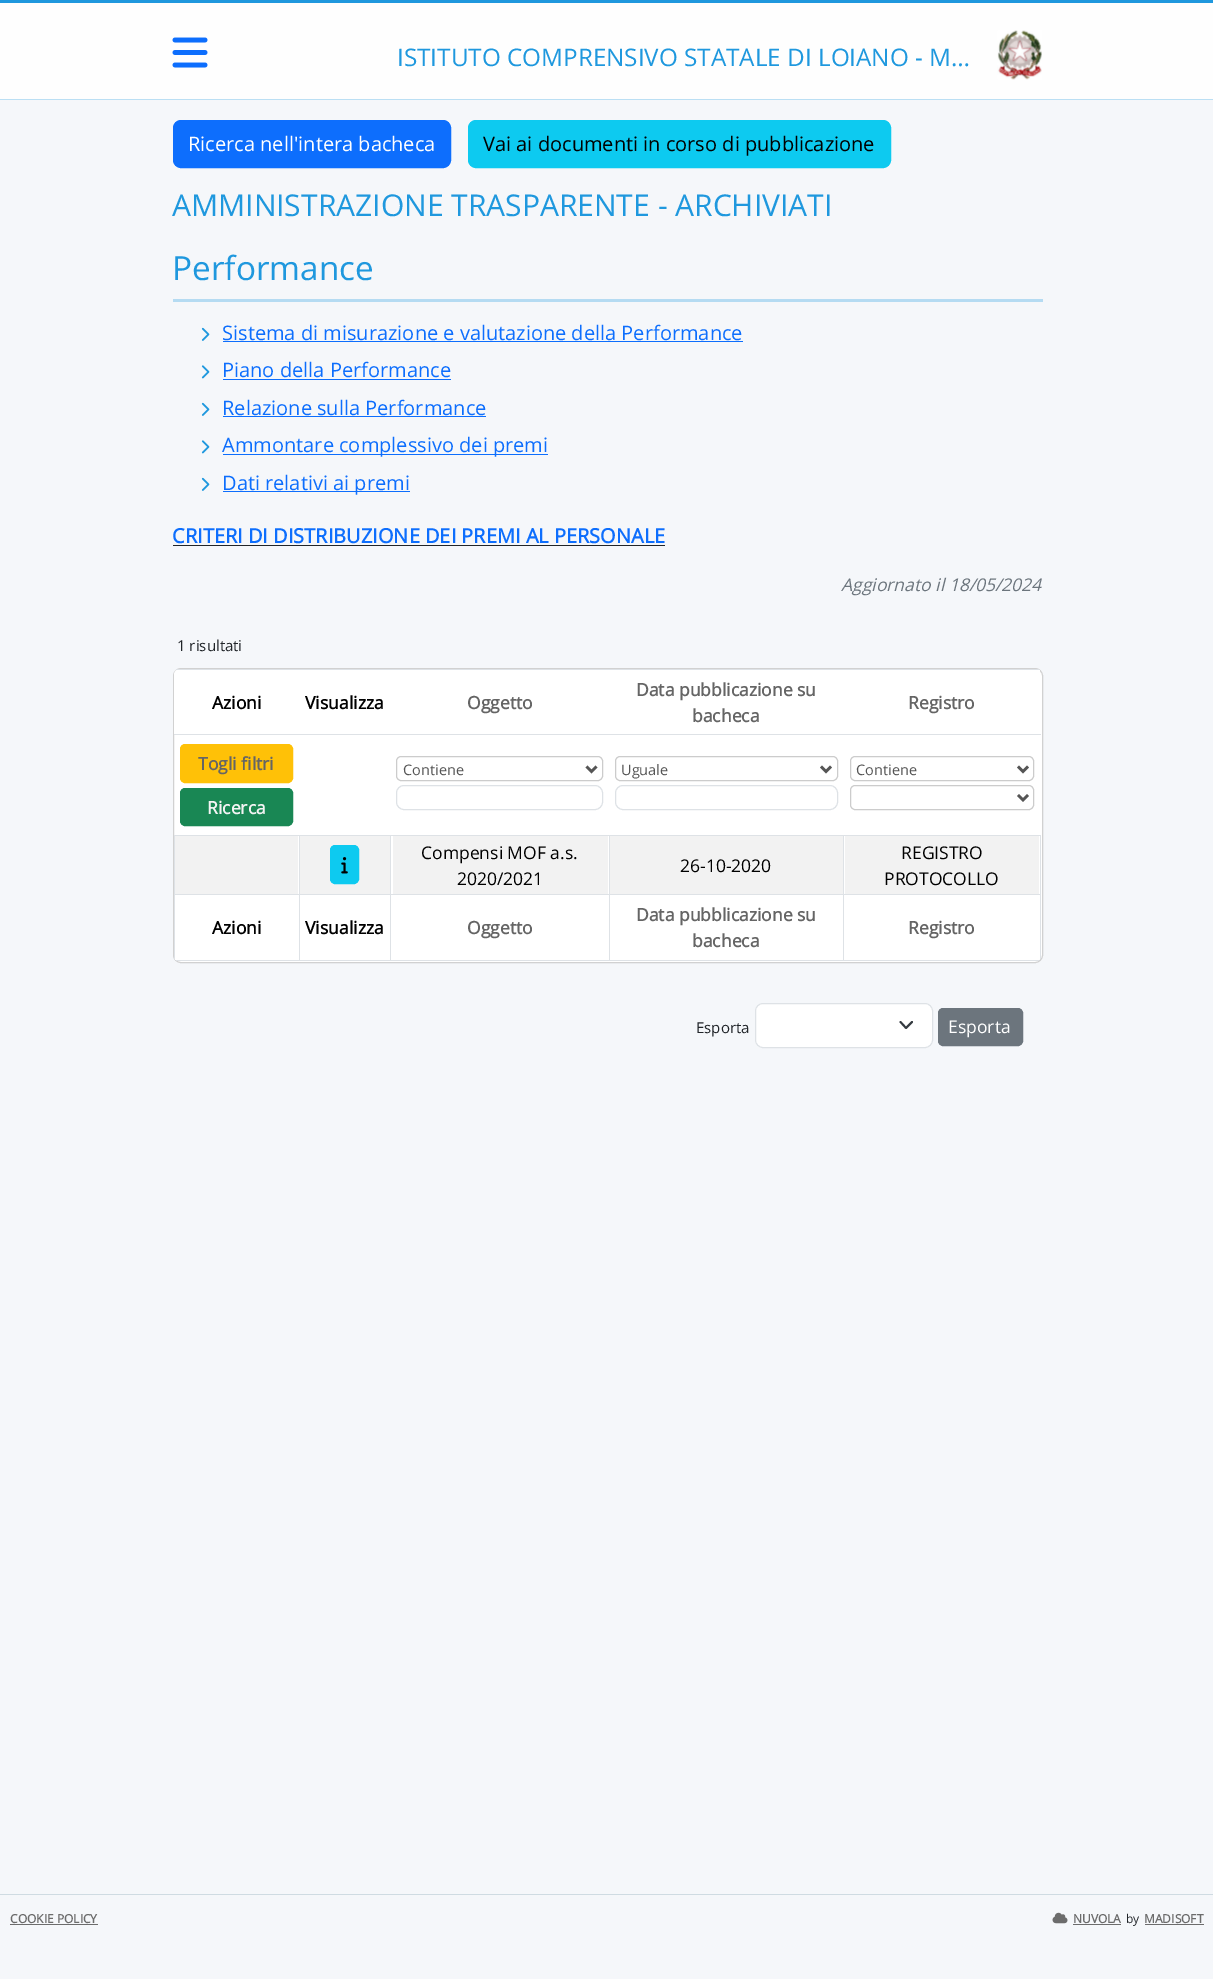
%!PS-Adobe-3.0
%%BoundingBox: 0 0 1213 1979
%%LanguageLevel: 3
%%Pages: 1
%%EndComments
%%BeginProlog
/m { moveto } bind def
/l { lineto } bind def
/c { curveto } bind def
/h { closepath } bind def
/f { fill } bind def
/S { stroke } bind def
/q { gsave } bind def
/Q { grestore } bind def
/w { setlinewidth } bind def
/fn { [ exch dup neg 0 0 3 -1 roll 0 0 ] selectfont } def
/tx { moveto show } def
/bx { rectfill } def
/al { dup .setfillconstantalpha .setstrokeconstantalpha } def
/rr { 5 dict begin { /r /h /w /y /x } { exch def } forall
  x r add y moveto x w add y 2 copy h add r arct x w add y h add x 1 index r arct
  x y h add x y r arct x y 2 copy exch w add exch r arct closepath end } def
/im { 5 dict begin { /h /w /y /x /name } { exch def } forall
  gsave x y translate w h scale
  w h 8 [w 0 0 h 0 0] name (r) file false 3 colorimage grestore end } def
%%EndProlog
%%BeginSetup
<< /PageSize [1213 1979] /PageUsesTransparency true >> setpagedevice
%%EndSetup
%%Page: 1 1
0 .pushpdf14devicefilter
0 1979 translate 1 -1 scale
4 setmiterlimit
0.961 0.969 0.98 setrgbcolor
0 0 1213 1979 bx
0.996 setgray
0 3 1213 96 bx
0.122 0.596 0.871 setrgbcolor
0 0 1213 3 bx
0.733 0.875 0.957 setrgbcolor
0 99 1213 1 bx
(image0.raw) 172 37 36 31 im
/OpenSans-Regular 24.25 fn
0.122 0.596 0.871 setrgbcolor
(ISTITUTO COMPRENSIVO STATALE DI LOIANO - M…) 397 66 tx
(image1.raw) 997 30 45 50 im
0.051 0.431 0.992 setrgbcolor
173.5 120.5 277 47 7.5 rr q f Q
S
/OpenSans-Regular 20 fn
1 setgray
(Ricerca nell'intera bacheca) 188 151 tx
0.051 0.792 0.941 setrgbcolor
468.5 120.5 422 47 7.5 rr q f Q
S
0 setgray
(Vai ai documenti in corso di pubblicazione) 483 151 tx
/OpenSans-Regular 30 fn
0.122 0.596 0.871 setrgbcolor
(AMMINISTRAZIONE TRASPARENTE - ARCHIVIATI) 172 216 tx
0.71 0.859 0.949 setrgbcolor
173 299 870 3 bx
/OpenSans-Regular 33.25 fn
0.122 0.596 0.871 setrgbcolor
(Performance) 172 280 tx
(image2.raw) 201 327 9 14 im
/OpenSans-Regular 20 fn
0.051 0.431 0.992 setrgbcolor
(Sistema di misurazione e valutazione della Performance) 222 340 tx
223 341 520 1 bx
(image3.raw) 201 365 9 14 im
(Piano della Performance) 222 377 tx
223 379 228 1 bx
(image2.raw) 201 402 9 14 im
(Relazione sulla Performance) 222 415 tx
223 416 263 1 bx
(image3.raw) 201 440 9 14 im
223 454 325 1 bx
(Ammontare complessivo dei premi) 222 452 tx
(image2.raw) 201 477 9 14 im
223 491 187 1 bx
(Dati relativi ai premi) 222 490 tx
/OpenSans-Bold 20 fn
(CRITERI DI DISTRIBUZIONE DEI PREMI AL PERSONALE) 172 543 tx
0.129 0.145 0.161 setrgbcolor
173 545 492 1 bx
/OpenSans-Italic 17.5 fn
0.424 0.459 0.49 setrgbcolor
(Aggiornato il 18/05/2024) 841 591 tx
/OpenSans-Regular 15 fn
0.129 0.145 0.161 setrgbcolor
(1 risultati) 177 651 tx
1 setgray
173 668 870 295 8 rr f
0.18 al
0 setgray
173.5 668.5 869 294 7.5 rr S
1 al
1 setgray
180 669 m 299 669 l 299 735 l 174 735 l 174 675 l 174 671.5 176.5 669 180 669 c h f
q
174 669 867 292 6 rr clip newpath
844 669 196 65 bx
0.871 0.886 0.902 setrgbcolor
174 669 867 1 bx
Q
/OpenSans-Bold 17.5 fn
0 setgray
(Azioni) 212 709 tx
(Visualizza) 305 709 tx
0.396 setgray
(Oggetto) 467 709 tx
(Data pubblicazione su) 636 696 tx
(bacheca) 692 722 tx
(Registro) 908 709 tx
0.871 0.886 0.902 setrgbcolor
174 734 867 1 bx
1 0.757 0.027 setrgbcolor
180.5 744.5 112 38 4.5 rr q f Q
S
0.396 setgray
(Togli filtri) 198 770 tx
0.098 0.529 0.329 setrgbcolor
180.5 788.5 112 37 4.5 rr q f Q
S
0.957 setgray
(Ricerca) 207 814 tx
0.8 setgray
396.5 756.5 206 24 4.5 rr S
0.333 setgray
2.5 w
586.5 766.5 m 591.5 771.5 l 596.5 766.5 l S
/OpenSans-Regular 14.5 fn
(Contiene) 403 775 tx
0.871 0.886 0.902 setrgbcolor
1 w
396.5 785.5 206 24 7.5 rr S
0.8 setgray
615.5 756.5 222 24 4.5 rr S
0.333 setgray
2.5 w
821 766.5 m 826 771.5 l 831 766.5 l S
(Uguale) 621 775 tx
0.871 0.886 0.902 setrgbcolor
1 w
615.5 785.5 222 24 7.5 rr S
0.8 setgray
850.5 756.5 183 24 4.5 rr S
0.333 setgray
2.5 w
1018 766.5 m 1023 771.5 l 1028 766.5 l S
(Contiene) 856 775 tx
0.8 setgray
1 w
850.5 785.5 183 24 4.5 rr S
0.333 setgray
2.5 w
1018 795 m 1023 800 l 1028 795 l S
0.871 0.886 0.902 setrgbcolor
174 835 867 1 bx
0.949 setgray
175 836 123 58 bx
0.871 0.886 0.902 setrgbcolor
174 894 867 1 bx
q
174 669 867 292 6 rr clip newpath
174 960 867 1 bx
174 894 1 67 bx
Q
174 835 1 60 bx
0.949 setgray
300 836 90 58 bx
0.051 0.792 0.941 setrgbcolor
330.5 845.5 28 38 4.5 rr q f Q
1 w
S
(image4.raw) 341 857 7 17 im
0.949 setgray
393 836 215 58 bx
/OpenSans-Regular 17.5 fn
0 setgray
(Compensi MOF a.s.) 421 859 tx
(2020/2021) 457 885 tx
0.949 setgray
610 836 233 58 bx
0 setgray
(26-10-2020) 680 872 tx
0.949 setgray
845 836 194 58 bx
q
174 669 867 292 6 rr clip newpath
0.871 0.886 0.902 setrgbcolor
1040 894 1 67 bx
Q
0.871 0.886 0.902 setrgbcolor
1040 835 1 60 bx
0 setgray
(REGISTRO) 901 859 tx
(PROTOCOLLO) 884 885 tx
q
174 669 867 292 6 rr clip newpath
1 setgray
175 895 123 65 bx
Q
/OpenSans-Bold 17.5 fn
(Azioni) 212 934 tx
0.871 0.886 0.902 setrgbcolor
299 835 1 126 bx
0 setgray
(Visualizza) 305 934 tx
0.871 0.886 0.902 setrgbcolor
390 835 1 126 bx
0.396 setgray
(Oggetto) 467 934 tx
0.871 0.886 0.902 setrgbcolor
609 835 1 126 bx
0.396 setgray
(Data pubblicazione su) 636 921 tx
(bacheca) 692 947 tx
0.871 0.886 0.902 setrgbcolor
843 835 1 126 bx
0.396 setgray
(Registro) 908 934 tx
/OpenSans-Regular 15 fn
0.129 0.145 0.161 setrgbcolor
(Esporta) 696 1033 tx
1 setgray
755 1003 178 45 8 rr f
0.204 0.227 0.251 setrgbcolor
1.9 w
1 setlinecap
1 setlinejoin
900.5 1022 m 906 1028 l 912 1022 l S
0.871 0.886 0.902 setrgbcolor
1 w
0 setlinecap
0 setlinejoin
755.5 1003.5 177 44 7.5 rr S
0.424 0.459 0.49 setrgbcolor
938.5 1008.5 84 37 4.5 rr q f Q
S
/OpenSans-Regular 17.5 fn
1 setgray
(Esporta) 948 1033 tx
0.812 0.859 0.886 setrgbcolor
0 1894 1213 1 bx
/OpenSans-Bold 12 fn
0.424 setgray
(COOKIE POLICY) 10 1923 tx
10 1924 88 1 bx
(image5.raw) 1052 1912 16 12 im
(NUVOLA) 1073 1923 tx
1073 1924 48 1 bx
/OpenSans-Regular 12 fn
0.129 0.145 0.161 setrgbcolor
(by) 1126 1923 tx
/OpenSans-Bold 12 fn
0.424 setgray
(MADISOFT) 1144 1923 tx
1145 1924 59 1 bx
.poppdf14devicefilter showpage
%%EOF
